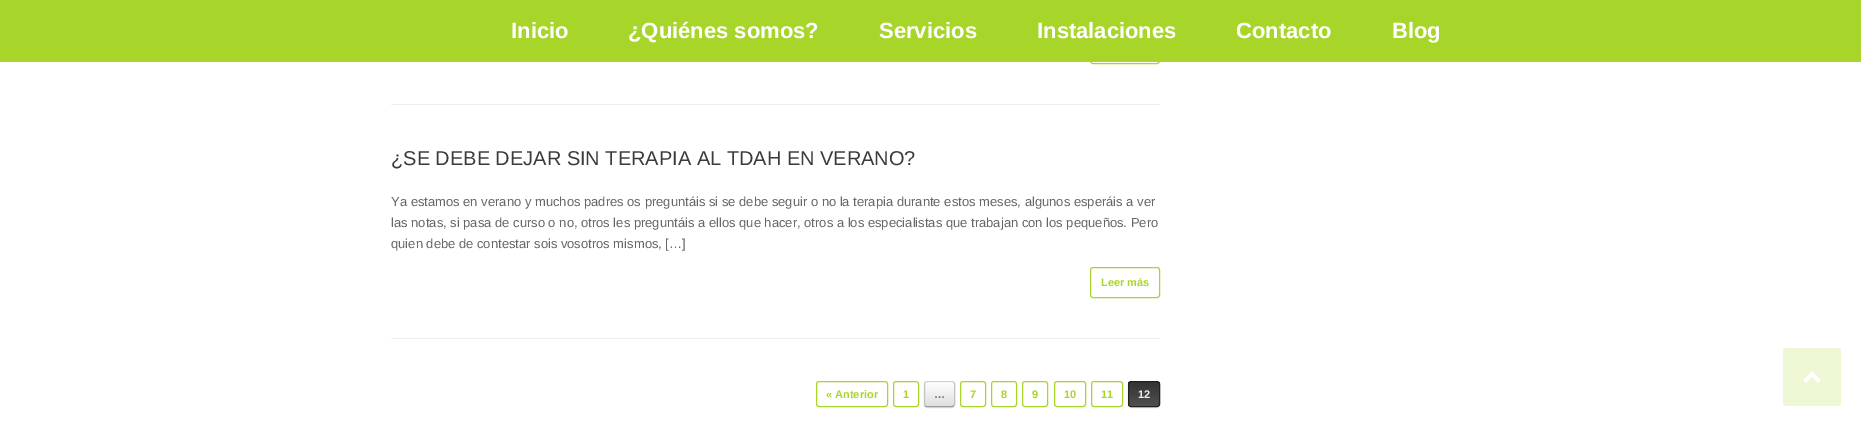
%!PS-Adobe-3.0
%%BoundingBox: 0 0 1861 426
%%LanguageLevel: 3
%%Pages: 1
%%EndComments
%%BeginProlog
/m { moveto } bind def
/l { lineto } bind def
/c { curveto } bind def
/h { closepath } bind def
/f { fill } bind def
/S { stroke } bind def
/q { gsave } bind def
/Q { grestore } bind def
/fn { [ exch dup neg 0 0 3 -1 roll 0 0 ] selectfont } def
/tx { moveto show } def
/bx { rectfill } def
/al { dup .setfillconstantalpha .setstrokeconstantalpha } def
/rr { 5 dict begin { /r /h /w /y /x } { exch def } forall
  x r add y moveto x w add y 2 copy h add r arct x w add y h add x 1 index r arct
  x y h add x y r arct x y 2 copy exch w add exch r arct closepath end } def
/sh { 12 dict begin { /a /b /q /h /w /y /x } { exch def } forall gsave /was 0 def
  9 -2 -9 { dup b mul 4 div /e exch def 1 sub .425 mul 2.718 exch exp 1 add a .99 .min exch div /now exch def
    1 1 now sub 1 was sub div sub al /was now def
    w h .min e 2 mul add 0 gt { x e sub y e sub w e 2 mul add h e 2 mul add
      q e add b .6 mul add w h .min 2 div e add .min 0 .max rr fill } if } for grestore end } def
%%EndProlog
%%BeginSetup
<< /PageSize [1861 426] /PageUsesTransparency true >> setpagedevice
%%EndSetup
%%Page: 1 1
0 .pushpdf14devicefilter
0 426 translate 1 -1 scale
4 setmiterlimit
1 setgray
0 0 1861 426 bx
0.655 0.835 0.165 setrgbcolor
1090.5 33.5 69 30 2.5 rr S
0 0 1861 62 bx
/LiberationSans-Bold 22 fn
1 setgray
(Inicio) 511 38 tx
(¿Quiénes somos?) 628 38 tx
(Servicios) 879 38 tx
(Instalaciones) 1037 38 tx
(Contacto) 1236 38 tx
(Blog) 1392 38 tx
0.933 setgray
391 104 769 1 bx
391 338 769 1 bx
/LiberationSans-Regular 20 fn
0.231 setgray
(¿SE DEBE DEJAR SIN TERAPIA AL TDAH EN VERANO?) 391 165 tx
/LiberationSans-Regular 13 fn
0.4 setgray
(Ya estamos en verano y muchos padres os preguntáis si se debe seguir o no la terapia durante estos meses, algunos esperáis a ver) 391 206 tx
(las notas, si pasa de curso o no, otros les preguntáis a ellos que hacer, otros a los especialistas que trabajan con los pequeños. Pero) 391 227 tx
(quien debe de contestar sois vosotros mismos, […]) 391 248 tx
0.655 0.835 0.165 setrgbcolor
1090.5 267.5 69 30 2.5 rr S
/LiberationSans-Bold 11 fn
(Leer más) 1101 286 tx
816.5 381.5 71 25 2.5 rr S
(« Anterior) 826 398 tx
893.5 381.5 25 25 2.5 rr S
(1) 903 398 tx
0 setgray
924 382 31 26 3 0.5 0.12 sh
q
924 381 31 26 3 rr clip newpath
q 924 382 m 955 382 l 955 406 l 924 406 l h clip newpath
<< /ShadingType 2 /ColorSpace /DeviceRGB /Coords [925 406 925 382] /Extend [true true] /Function << /FunctionType 2 /Domain [0 1] /C0 [0.875 0.875 0.875] /C1 [1 1 1] /N 1 >> >> shfill Q
Q
0.824 setgray
925 382 m 925.5 382 926.5 381.5 927 381.5 c 952 381.5 l 952.5 381.5 953.5 382 954 382 c S
0.765 setgray
954 382 m 954 382.5 954.5 383.5 954.5 384 c 954.5 404 l 954.5 404.5 954 405.5 954 406 c S
0.624 setgray
954 406 m 953.5 406 952.5 406.5 952 406.5 c 927 406.5 l 926.5 406.5 925.5 406 925 406 c S
0.765 setgray
925 406 m 925 405.5 924.5 404.5 924.5 404 c 924.5 384 l 924.5 383.5 925 382.5 925 382 c S
0.4 setgray
(…) 934 398 tx
0.655 0.835 0.165 setrgbcolor
960.5 381.5 25 25 2.5 rr S
(7) 970 398 tx
991.5 381.5 25 25 2.5 rr S
(8) 1001 398 tx
1022.5 381.5 25 25 2.5 rr S
(9) 1032 398 tx
1054.5 381.5 31 25 2.5 rr S
(10) 1064 398 tx
1091.5 381.5 31 25 2.5 rr S
(11) 1101 398 tx
0 setgray
1128 382 32 26 3 0.5 0.12 sh
q
1128 381 32 26 3 rr clip newpath
q 1128 382 m 1160 382 l 1160 406 l 1128 406 l h clip newpath
<< /ShadingType 2 /ColorSpace /DeviceRGB /Coords [1129 406 1129 382] /Extend [true true] /Function << /FunctionType 2 /Domain [0 1] /C0 [0.314 0.314 0.314] /C1 [0.2 0.2 0.2] /N 1 >> >> shfill Q
Q
0.133 setgray
1128.5 381.5 31 25 2.5 rr S
0.937 setgray
(12) 1138 398 tx
0.929 0.969 0.831 setrgbcolor
1783 348 58 58 3 rr f
1 setgray
1821 380 m 1812 371 l 1803 380 l 1806 383 l 1812 377 l 1818 383 l h f
.poppdf14devicefilter showpage
%%EOF
